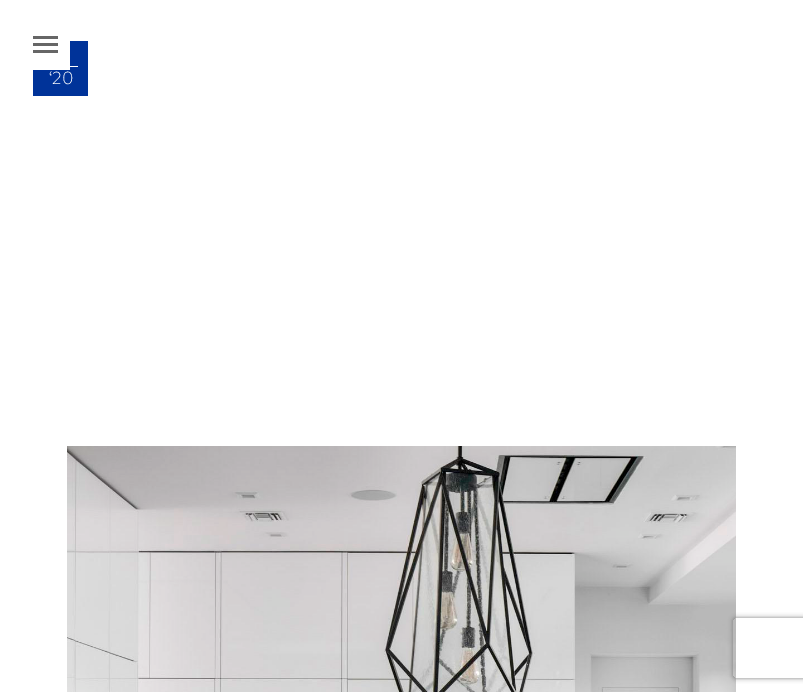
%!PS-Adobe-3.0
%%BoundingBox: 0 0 803 692
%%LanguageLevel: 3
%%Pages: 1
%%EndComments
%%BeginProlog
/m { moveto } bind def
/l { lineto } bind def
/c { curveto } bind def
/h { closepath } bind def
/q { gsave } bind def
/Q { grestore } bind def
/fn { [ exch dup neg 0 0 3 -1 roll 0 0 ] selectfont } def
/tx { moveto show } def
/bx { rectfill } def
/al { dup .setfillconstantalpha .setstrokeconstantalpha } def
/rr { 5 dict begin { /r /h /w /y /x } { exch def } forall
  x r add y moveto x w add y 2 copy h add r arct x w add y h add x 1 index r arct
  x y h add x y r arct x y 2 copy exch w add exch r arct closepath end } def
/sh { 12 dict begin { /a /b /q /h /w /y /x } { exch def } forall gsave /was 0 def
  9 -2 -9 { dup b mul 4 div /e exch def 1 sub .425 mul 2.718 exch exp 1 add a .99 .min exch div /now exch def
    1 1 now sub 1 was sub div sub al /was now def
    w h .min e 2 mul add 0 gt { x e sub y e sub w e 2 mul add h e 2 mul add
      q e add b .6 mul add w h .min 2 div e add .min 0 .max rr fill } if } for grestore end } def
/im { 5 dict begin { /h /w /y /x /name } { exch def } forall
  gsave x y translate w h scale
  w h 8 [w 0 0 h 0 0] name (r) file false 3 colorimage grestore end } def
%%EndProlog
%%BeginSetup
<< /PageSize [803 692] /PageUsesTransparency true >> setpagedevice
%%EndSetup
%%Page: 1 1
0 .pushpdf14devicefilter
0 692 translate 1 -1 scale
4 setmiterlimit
1 setgray
0 0 803 692 bx
0 0.2 0.6 setrgbcolor
33 41 55 55 bx
1 setgray
33 41 37 29 bx
0.4 setgray
33 36 25 3 bx
33 43 25 3 bx
33 50 25 3 bx
1 setgray
70 66 8 1 bx
/BrandonGrotesque-Light 18 fn
(‘20) 49 84 tx
(image0.raw) 67 446 669 246 im
q
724 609 m 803 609 l 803 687 l 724 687 l h 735 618 m 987 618 l 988 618 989 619 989 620 c 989 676 l 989 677 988 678 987 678 c 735 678 l 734 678 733 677 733 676 c 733 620 l 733 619 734 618 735 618 c h eoclip newpath
0.502 setgray
733 618 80 60 2 2.5 1 sh
Q
.poppdf14devicefilter showpage
%%EOF
